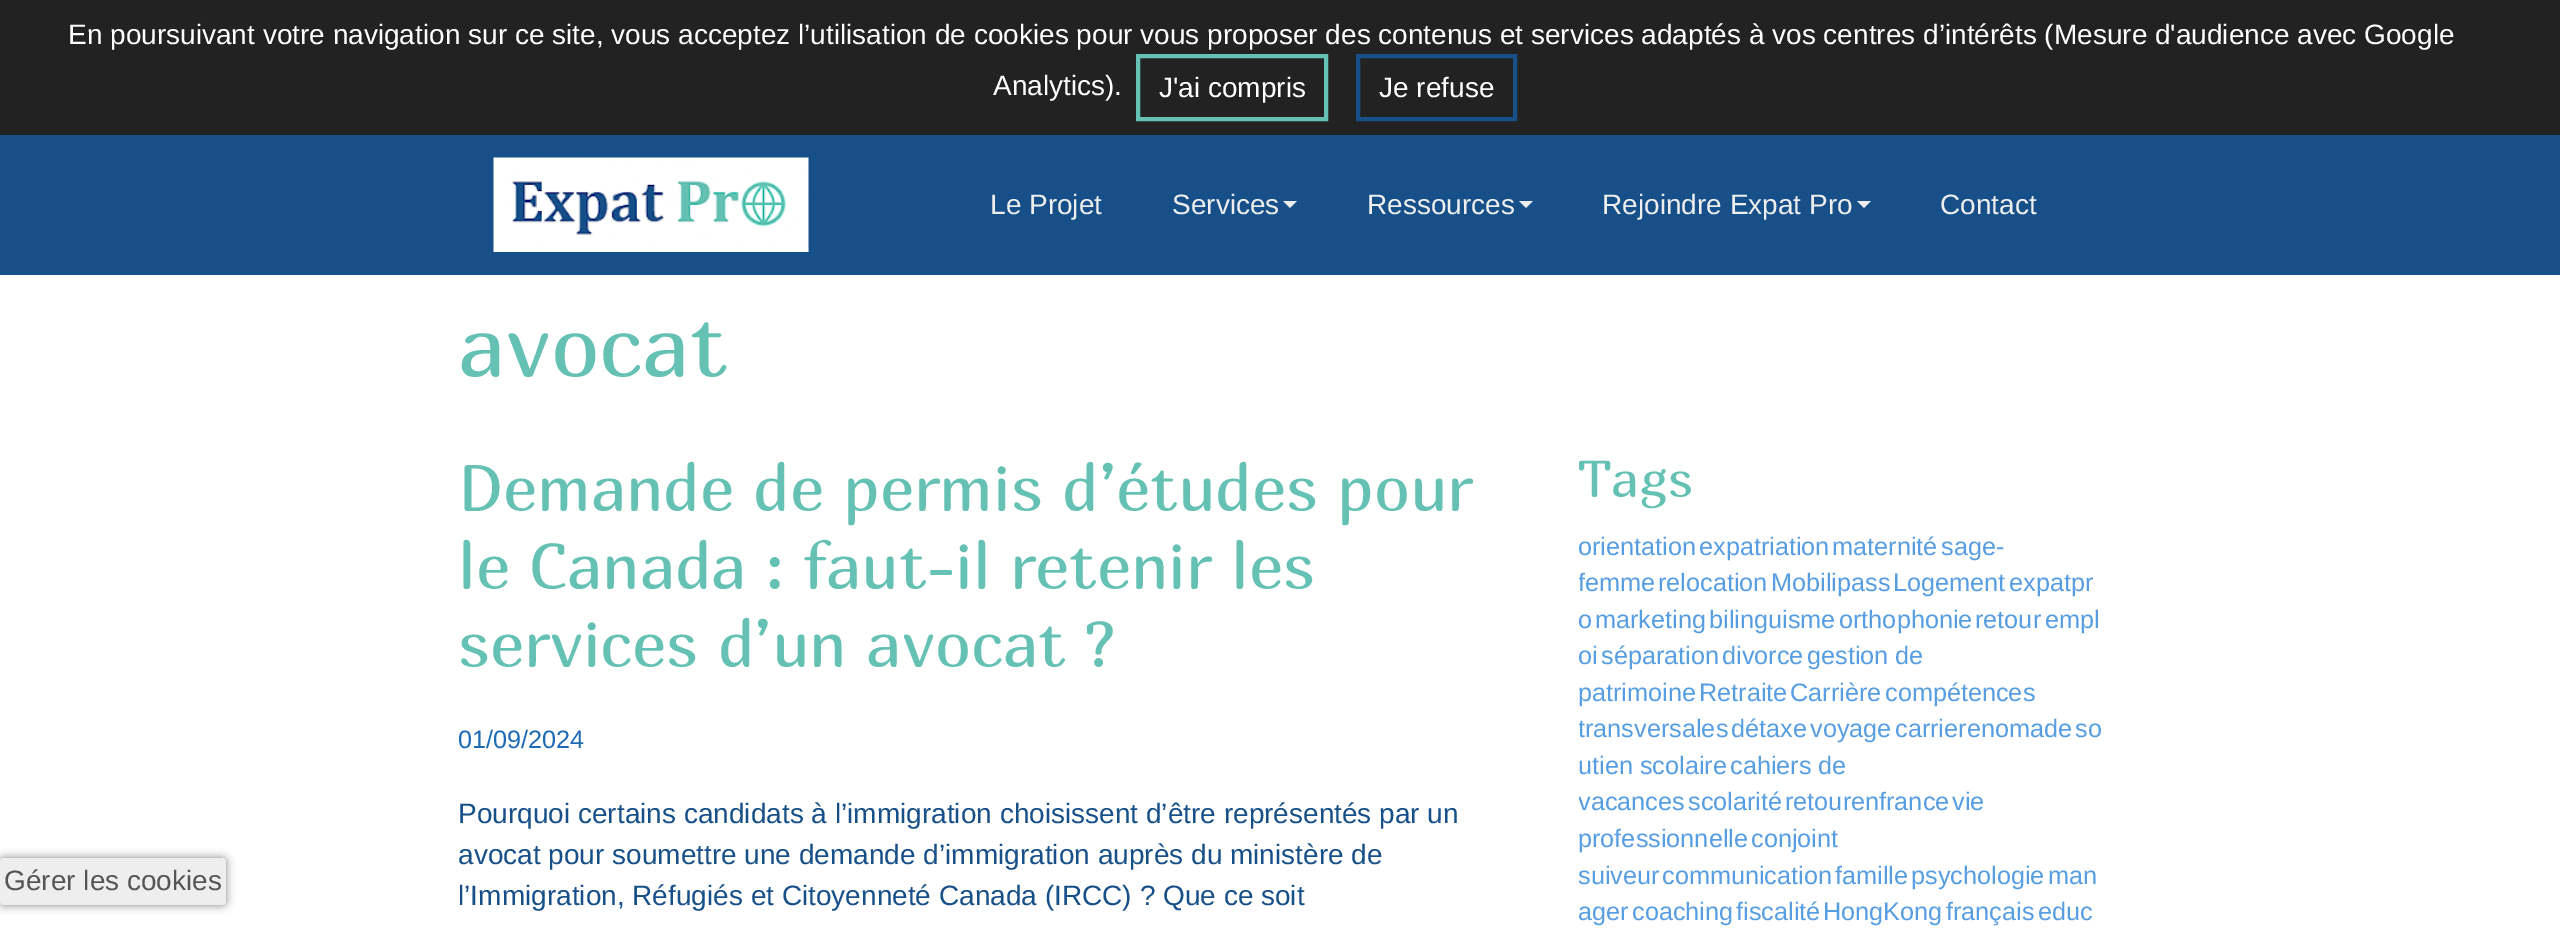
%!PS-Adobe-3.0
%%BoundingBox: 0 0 2560 929
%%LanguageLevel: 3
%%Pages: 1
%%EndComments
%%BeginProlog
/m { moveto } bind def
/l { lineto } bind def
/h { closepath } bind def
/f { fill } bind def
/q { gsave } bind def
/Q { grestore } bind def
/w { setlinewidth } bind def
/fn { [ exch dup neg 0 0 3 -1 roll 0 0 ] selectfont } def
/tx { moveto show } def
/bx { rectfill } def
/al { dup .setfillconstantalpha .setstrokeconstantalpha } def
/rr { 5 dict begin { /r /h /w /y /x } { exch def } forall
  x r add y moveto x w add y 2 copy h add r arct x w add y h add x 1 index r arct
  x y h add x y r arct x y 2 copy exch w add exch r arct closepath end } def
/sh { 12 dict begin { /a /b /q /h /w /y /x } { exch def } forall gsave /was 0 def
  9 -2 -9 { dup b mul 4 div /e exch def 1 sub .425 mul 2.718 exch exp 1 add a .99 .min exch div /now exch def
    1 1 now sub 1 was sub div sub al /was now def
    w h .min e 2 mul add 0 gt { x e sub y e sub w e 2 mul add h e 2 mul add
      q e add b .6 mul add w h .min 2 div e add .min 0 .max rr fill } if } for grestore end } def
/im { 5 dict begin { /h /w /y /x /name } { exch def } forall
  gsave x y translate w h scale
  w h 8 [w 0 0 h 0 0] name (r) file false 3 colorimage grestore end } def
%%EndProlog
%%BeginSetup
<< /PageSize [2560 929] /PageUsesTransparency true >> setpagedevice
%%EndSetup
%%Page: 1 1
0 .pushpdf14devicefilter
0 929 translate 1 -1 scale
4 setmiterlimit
1 setgray
0 0 2560 929 bx
0.133 setgray
0 0 2560 135 bx
/LiberationSans-Regular 28 fn
1 setgray
(En poursuivant votre navigation sur ce site, vous acceptez l’utilisation de cookies pour vous proposer des contenus et services adaptés à vos centres d’intérêts \(Mesure d'audience avec Google) 68 44 tx
(Analytics\).) 993 95 tx
0.392 0.757 0.702 setrgbcolor
4 w
1138 56 188 63 rectstroke
1 setgray
(J'ai compris) 1159 97 tx
0.09 0.314 0.533 setrgbcolor
1358 56 157 63 rectstroke
1 setgray
(Je refuse) 1379 97 tx
0.502 setgray
0 858 226 47 4 4.5 1 sh
0.933 setgray
0 858 226 47 4 rr f
0.333 setgray
(Gérer les cookies) 4 890 tx
0.09 0.314 0.533 setrgbcolor
0 135 2560 140 bx
(image0.raw) 493 157 316 95 im
0.933 setgray
(Le Projet) 990 214 tx
(Services) 1172 214 tx
1283 201 m 1297 201 l 1290 208 l h f
(Ressources) 1367 214 tx
1519 201 m 1533 201 l 1526 208 l h f
(Rejoindre Expat Pro) 1602 214 tx
1857 201 m 1871 201 l 1864 208 l h f
(Contact) 1940 214 tx
/Marmelad-Regular 87.5 fn
0.392 0.757 0.702 setrgbcolor
(avocat) 458 377 tx
/Marmelad-Regular 64.75 fn
(Demande de permis d’études pour) 458 511 tx
(le Canada : faut-il retenir les) 458 589 tx
(services d’un avocat ?) 458 667 tx
q
459 432 1085 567 rectclip
/LiberationSans-Regular 25.25 fn
0.118 0.416 0.706 setrgbcolor
(01/09/2024) 458 748 tx
Q
/LiberationSans-Regular 28 fn
0.09 0.314 0.533 setrgbcolor
(Pourquoi certains candidats à l’immigration choisissent d’être représentés par un) 458 823 tx
(avocat pour soumettre une demande d’immigration auprès du ministère de) 458 864 tx
(l’Immigration, Réfugiés et Citoyenneté Canada \(IRCC\) ? Que ce soit) 458 905 tx
q
1579 432 525 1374 rectclip
/Marmelad-Regular 51 fn
0.392 0.757 0.702 setrgbcolor
(Tags) 1578 497 tx
/LiberationSans-Regular 25.25 fn
0.337 0.616 0.886 setrgbcolor
(orientation) 1578 555 tx
Q
/LiberationSans-Regular 25.25 fn
0.337 0.616 0.886 setrgbcolor
(expatriation) 1699 555 tx
(maternité) 1832 555 tx
(sage-) 1941 555 tx
q
1579 432 525 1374 rectclip
(femme) 1578 591 tx
Q
(relocation) 1658 591 tx
(Mobilipass) 1771 591 tx
(Logement) 1893 591 tx
(expatpr) 2009 591 tx
q
1579 432 525 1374 rectclip
(o) 1578 628 tx
Q
(marketing) 1595 628 tx
(bilinguisme) 1709 628 tx
(orthophonie) 1839 628 tx
(retour) 1975 628 tx
(empl) 2045 628 tx
q
1579 432 525 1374 rectclip
(oi) 1578 664 tx
Q
(séparation) 1601 664 tx
(divorce) 1722 664 tx
(gestion de) 1807 664 tx
(patrimoine) 1578 701 tx
(Retraite) 1699 701 tx
(Carrière) 1790 701 tx
(compétences) 1885 701 tx
q
1579 432 525 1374 rectclip
(transversales) 1578 737 tx
Q
(détaxe) 1731 737 tx
(voyage) 1810 737 tx
(carrierenomade) 1895 737 tx
(so) 2075 737 tx
(utien scolaire) 1578 774 tx
(cahiers de) 1730 774 tx
q
1579 432 525 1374 rectclip
(vacances) 1578 810 tx
Q
(scolarité) 1688 810 tx
(retourenfrance) 1785 810 tx
(vie) 1952 810 tx
(professionnelle) 1578 847 tx
(conjoint) 1751 847 tx
q
1579 432 525 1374 rectclip
(suiveur) 1578 884 tx
Q
(communication) 1662 884 tx
(famille) 1835 884 tx
(psychologie) 1911 884 tx
(man) 2048 884 tx
q
1579 432 525 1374 rectclip
(ager) 1578 920 tx
Q
(coaching) 1632 920 tx
(fiscalité) 1736 920 tx
(HongKong) 1823 920 tx
(français) 1946 920 tx
(educ) 2038 920 tx
.poppdf14devicefilter showpage
%%EOF
